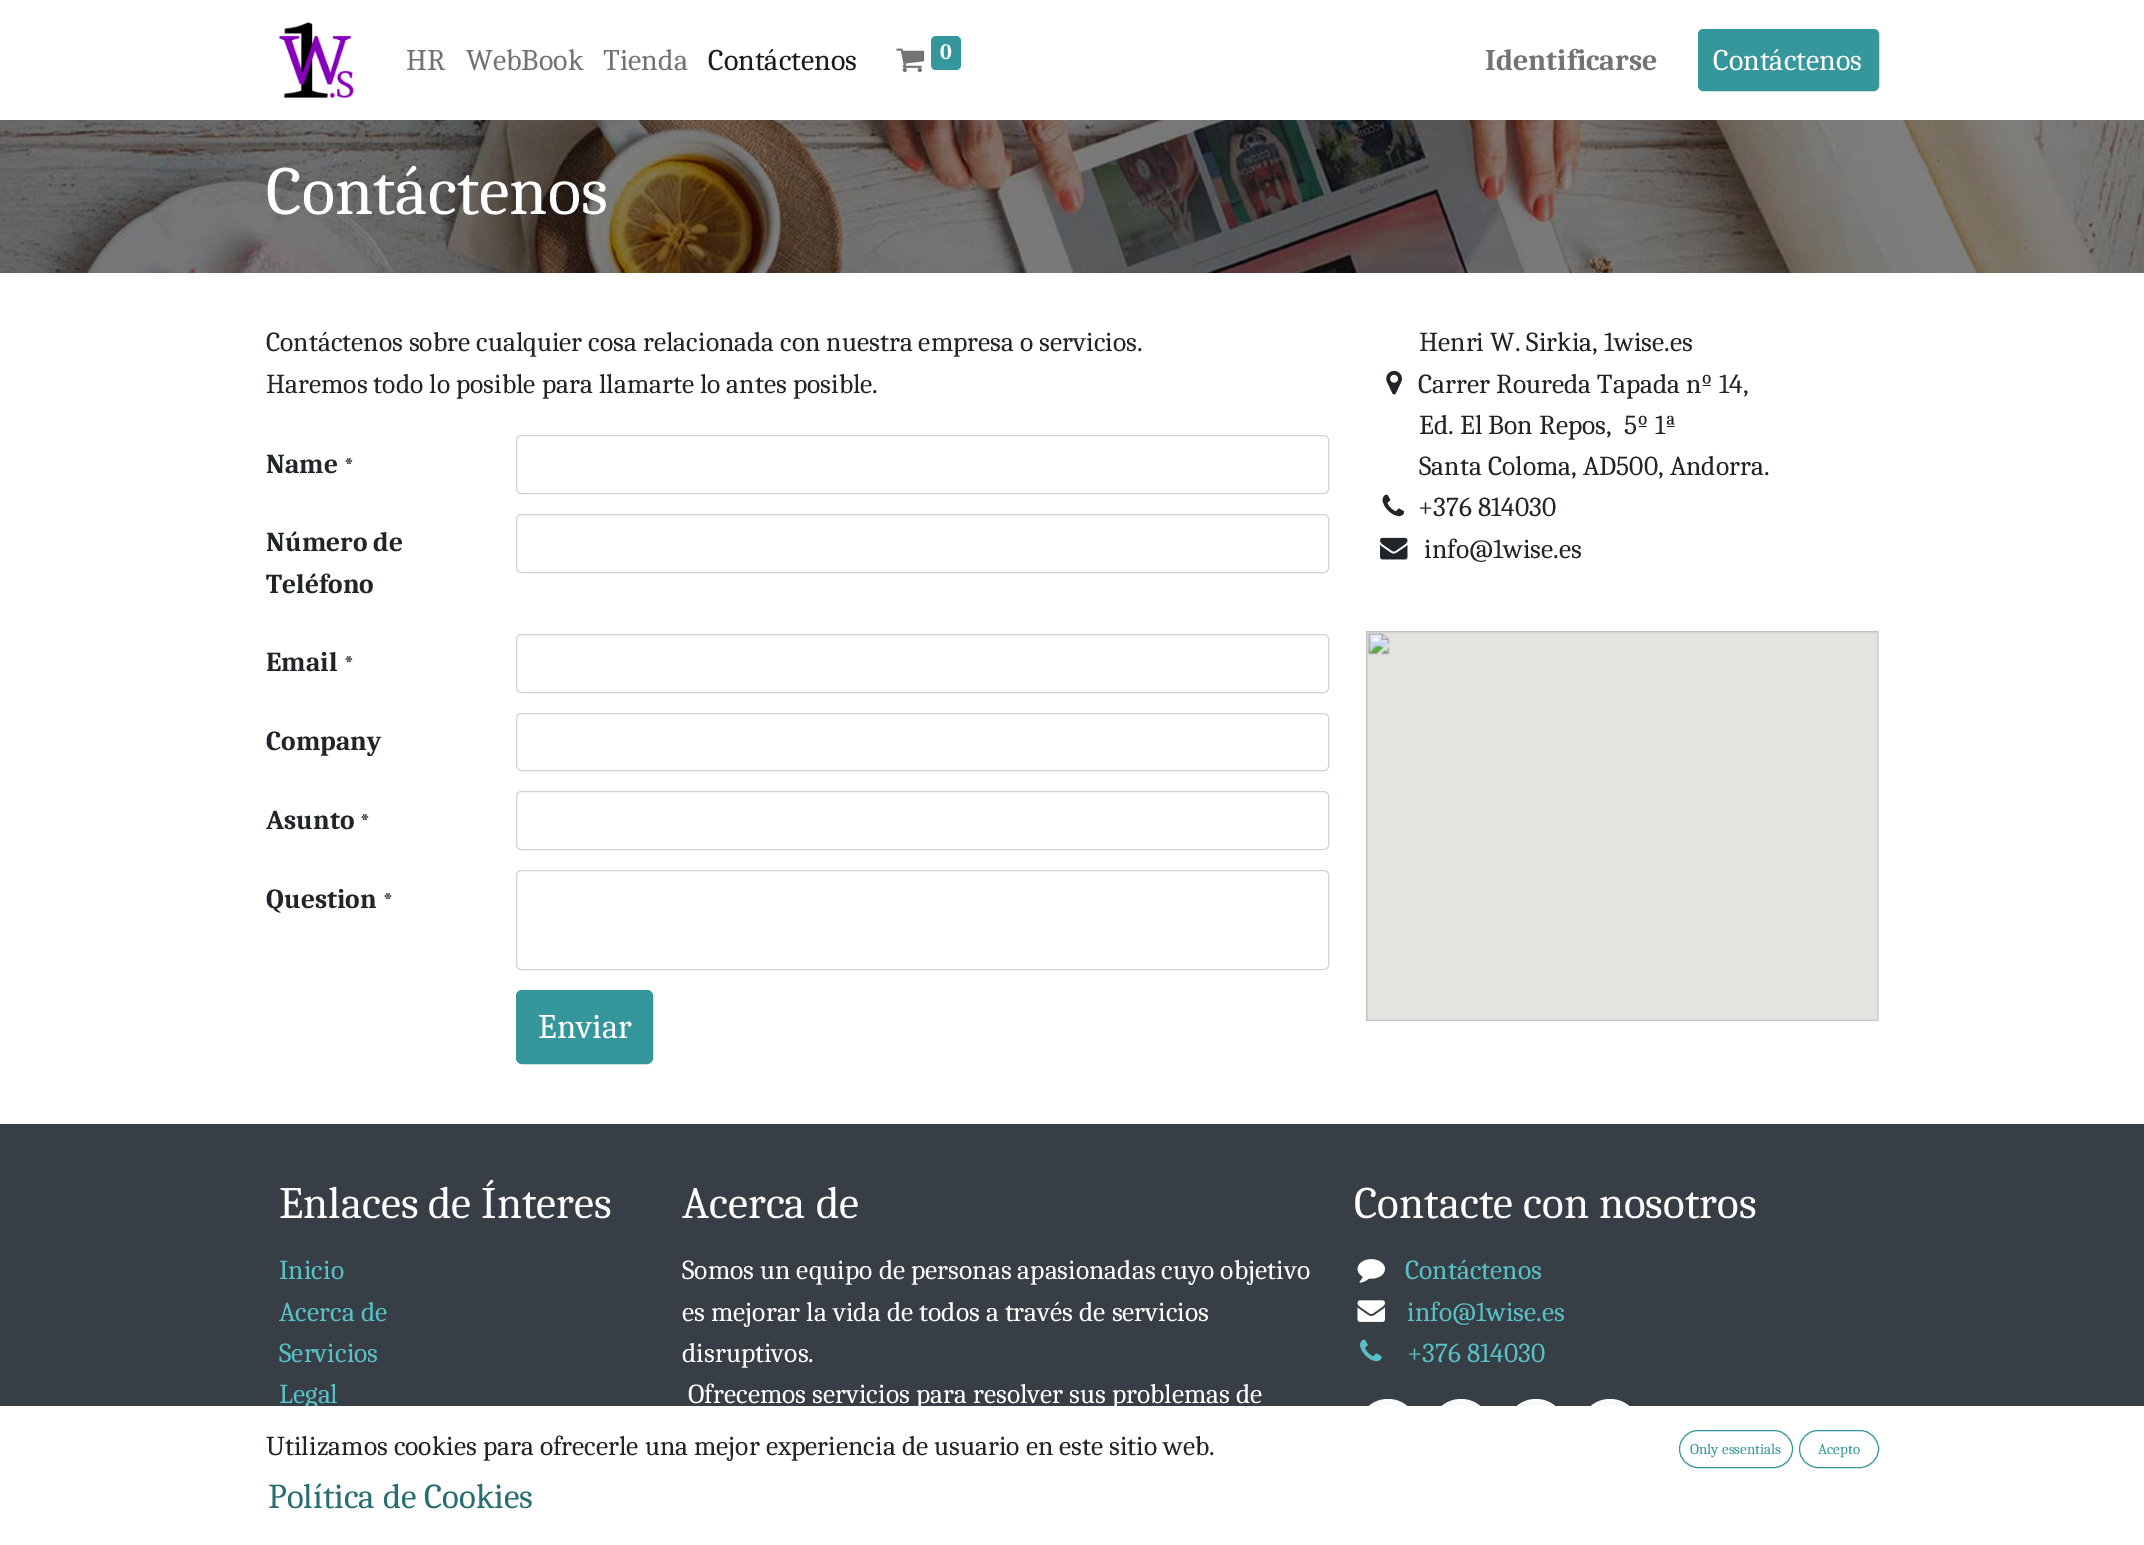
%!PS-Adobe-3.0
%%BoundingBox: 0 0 2144 1545
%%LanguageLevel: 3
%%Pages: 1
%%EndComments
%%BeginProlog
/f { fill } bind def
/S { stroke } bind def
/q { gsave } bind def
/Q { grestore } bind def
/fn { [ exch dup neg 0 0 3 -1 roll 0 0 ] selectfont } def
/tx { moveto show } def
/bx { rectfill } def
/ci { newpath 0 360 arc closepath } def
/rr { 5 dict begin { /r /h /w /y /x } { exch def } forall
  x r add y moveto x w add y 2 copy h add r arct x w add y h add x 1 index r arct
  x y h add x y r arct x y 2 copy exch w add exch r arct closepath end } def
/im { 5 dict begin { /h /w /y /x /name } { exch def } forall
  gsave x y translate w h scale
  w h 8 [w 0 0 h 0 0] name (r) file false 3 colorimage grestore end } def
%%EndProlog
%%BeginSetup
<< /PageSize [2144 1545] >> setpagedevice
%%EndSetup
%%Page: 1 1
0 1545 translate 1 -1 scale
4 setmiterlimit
1 setgray
0 0 2144 1545 bx
(image0.raw) 278 22 76 77 im
/Caladea-Regular 30 fn
0.451 setgray
(HR) 406 70 tx
(WebBook) 466 70 tx
(Tienda) 603 70 tx
0.102 setgray
(Contáctenos) 708 70 tx
(image1.raw) 896 48 29 25 im
0.208 0.592 0.612 setrgbcolor
931 36 30 34 5 rr f
/Caladea-Bold 22 fn
1 setgray
(0) 940 59 tx
/Caladea-Bold 30 fn
0.451 setgray
(Identificarse) 1485 70 tx
0.208 0.592 0.612 setrgbcolor
1698.5 29.5 180 61 4.5 rr q f Q
S
/Caladea-Regular 30 fn
1 setgray
(Contáctenos) 1713 70 tx
(image2.raw) 0 120 2144 153 im
/Caladea-Regular 68.75 fn
(Contáctenos) 266 214 tx
/Caladea-Regular 27.5 fn
0.129 0.145 0.161 setrgbcolor
(Contáctenos sobre cualquier cosa relacionada con nuestra empresa o servicios.) 266 351 tx
(Haremos todo lo posible para llamarte lo antes posible.) 266 393 tx
/Caladea-Bold 27.5 fn
(Name) 266 473 tx
/Caladea-Regular 23 fn
(*) 344 473 tx
0.808 0.831 0.855 setrgbcolor
516.5 435.5 812 58 4.5 rr S
/Caladea-Bold 27.5 fn
0.129 0.145 0.161 setrgbcolor
(Número de) 266 551 tx
(Teléfono) 266 593 tx
0.808 0.831 0.855 setrgbcolor
516.5 514.5 812 58 4.5 rr S
0.129 0.145 0.161 setrgbcolor
(Email) 266 671 tx
/Caladea-Regular 23 fn
(*) 344 671 tx
0.808 0.831 0.855 setrgbcolor
516.5 634.5 812 58 4.5 rr S
/Caladea-Bold 27.5 fn
0.129 0.145 0.161 setrgbcolor
(Company) 266 750 tx
0.808 0.831 0.855 setrgbcolor
516.5 713.5 812 57 4.5 rr S
0.129 0.145 0.161 setrgbcolor
(Asunto) 266 829 tx
/Caladea-Regular 23 fn
(*) 360 829 tx
0.808 0.831 0.855 setrgbcolor
516.5 791.5 812 58 4.5 rr S
/Caladea-Bold 27.5 fn
0.129 0.145 0.161 setrgbcolor
(Question) 266 908 tx
/Caladea-Regular 23 fn
(*) 383 908 tx
0.808 0.831 0.855 setrgbcolor
516.5 870.5 812 99 4.5 rr S
0.208 0.592 0.612 setrgbcolor
516.5 990.5 136 73 5.5 rr q f Q
S
/Caladea-Regular 34.5 fn
1 setgray
(Enviar) 538 1038 tx
/Caladea-Regular 27.5 fn
0.129 0.145 0.161 setrgbcolor
(Henri W. Sirkia, 1wise.es) 1419 351 tx
(image3.raw) 1386 370 16 25 im
(Carrer Roureda Tapada nº 14,) 1418 393 tx
(Ed. El Bon Repos,  5º 1ª) 1419 434 tx
(Santa Coloma, AD500, Andorra.) 1419 475 tx
(image4.raw) 1382 494 23 23 im
(+376 814030) 1418 516 tx
(image5.raw) 1380 537 28 23 im
(info@1wise.es) 1424 558 tx
(image6.raw) 1366 631 513 390 im
0.22 0.243 0.271 setrgbcolor
0 1124 2144 282 bx
/Caladea-Regular 45 fn
1 setgray
(Enlaces de Ínteres) 279 1218 tx
/Caladea-Regular 27.5 fn
0.341 0.757 0.776 setrgbcolor
(Inicio) 279 1279 tx
(Acerca de) 279 1321 tx
(Servicios) 279 1362 tx
(Legal) 279 1403 tx
/Caladea-Regular 45 fn
1 setgray
(Acerca de) 682 1218 tx
/Caladea-Regular 27.5 fn
(Somos un equipo de personas apasionadas cuyo objetivo) 682 1279 tx
(es mejorar la vida de todos a través de servicios) 682 1321 tx
(disruptivos.) 682 1362 tx
(Ofrecemos servicios para resolver sus problemas de) 688 1403 tx
/Caladea-Regular 45 fn
(Contacte con nosotros) 1354 1218 tx
(image7.raw) 1357 1259 28 24 im
/Caladea-Regular 27.5 fn
0.341 0.757 0.776 setrgbcolor
(Contáctenos) 1405 1279 tx
(image8.raw) 1357 1300 28 22 im
(info@1wise.es) 1407 1321 tx
(image9.raw) 1360 1339 22 23 im
(+376 814030) 1407 1362 tx
0.973 0.976 0.98 setrgbcolor
1388 1429 30 ci f
1461 1429 30 ci f
1536 1429 30 ci f
1610 1429 30 ci f
1 setgray
305 1406 1335 53 bx
0.129 0.145 0.161 setrgbcolor
(Utilizamos cookies para ofrecerle una mejor experiencia de usuario en este sitio web.) 266 1455 tx
/Caladea-Regular 35 fn
0.153 0.431 0.447 setrgbcolor
(Política de Cookies) 268 1508 tx
0.208 0.592 0.612 setrgbcolor
1679.5 1430.5 113 37 18.5 rr S
/Caladea-Regular 15 fn
(Only essentials) 1690 1454 tx
1799.5 1430.5 79 37 18.5 rr S
(Acepto) 1818 1454 tx
showpage
%%EOF
